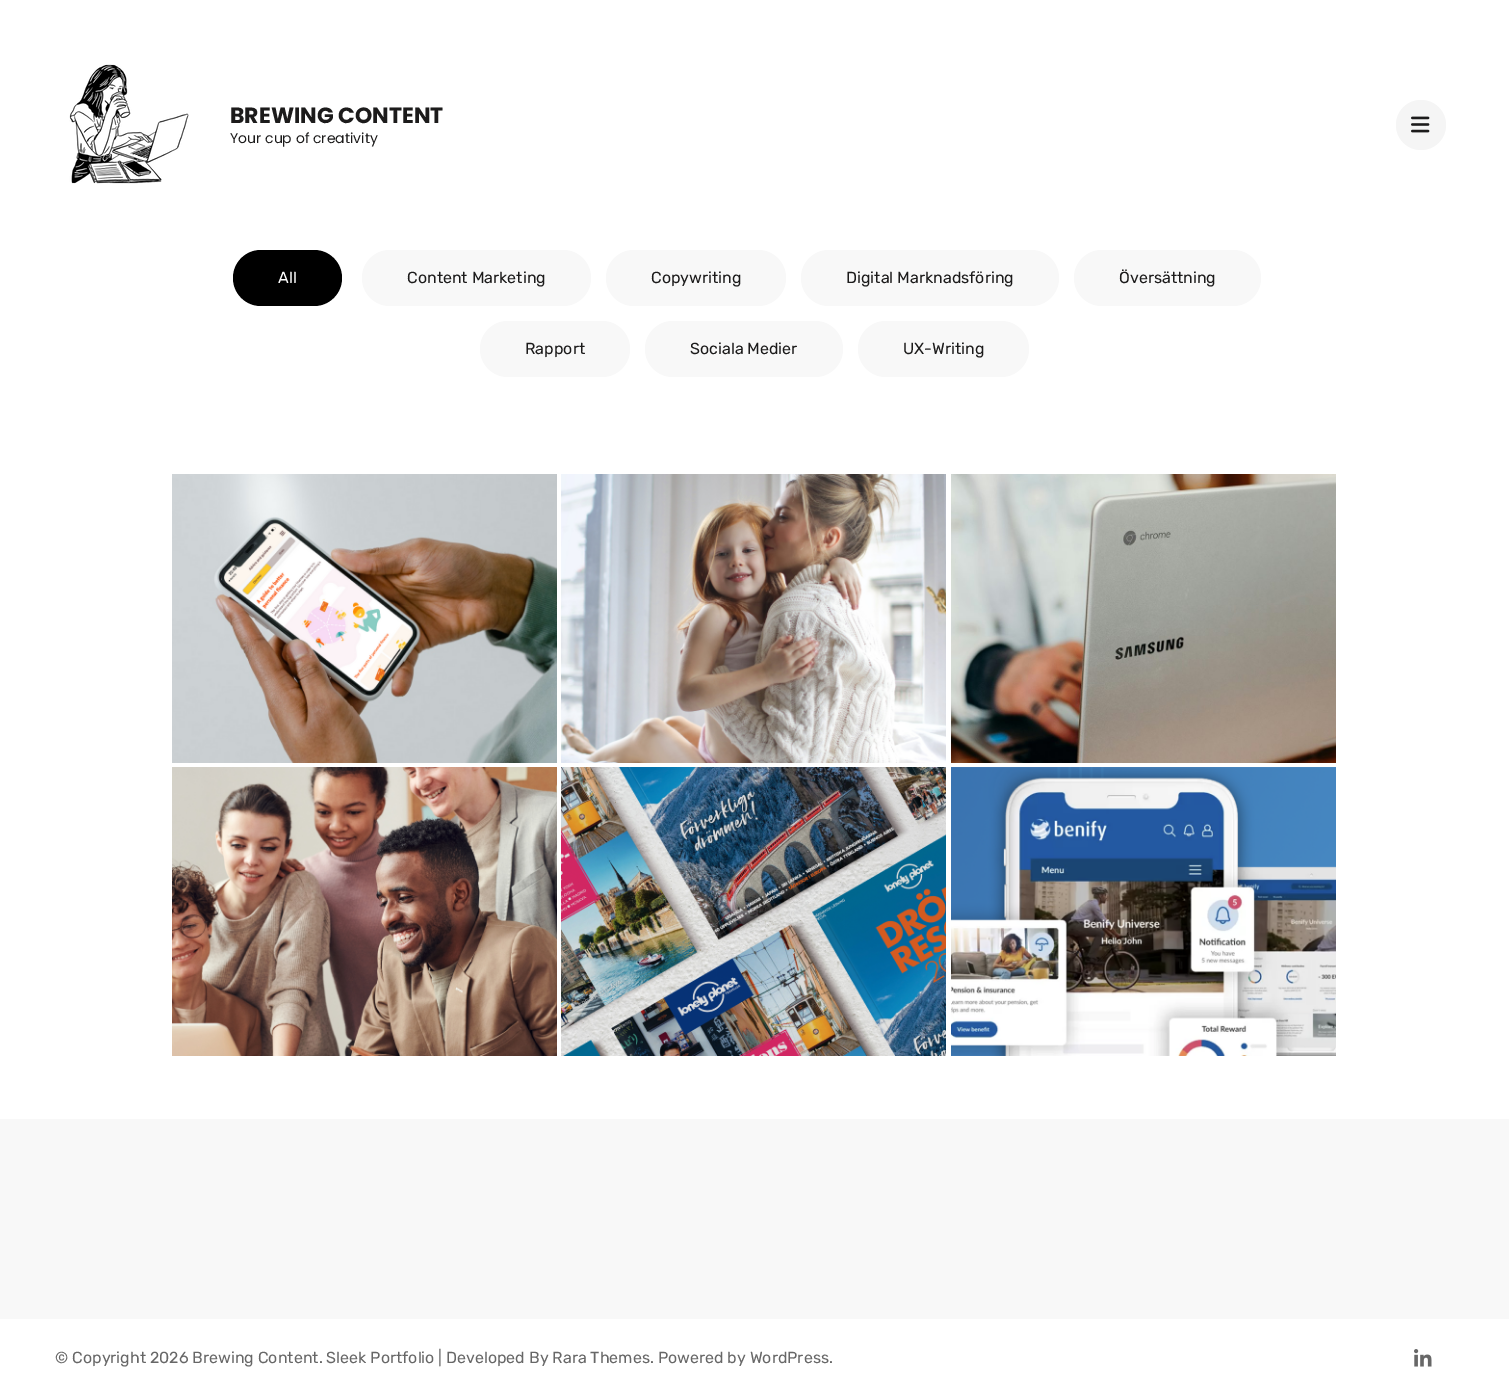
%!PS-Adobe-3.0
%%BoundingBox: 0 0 1509 1395
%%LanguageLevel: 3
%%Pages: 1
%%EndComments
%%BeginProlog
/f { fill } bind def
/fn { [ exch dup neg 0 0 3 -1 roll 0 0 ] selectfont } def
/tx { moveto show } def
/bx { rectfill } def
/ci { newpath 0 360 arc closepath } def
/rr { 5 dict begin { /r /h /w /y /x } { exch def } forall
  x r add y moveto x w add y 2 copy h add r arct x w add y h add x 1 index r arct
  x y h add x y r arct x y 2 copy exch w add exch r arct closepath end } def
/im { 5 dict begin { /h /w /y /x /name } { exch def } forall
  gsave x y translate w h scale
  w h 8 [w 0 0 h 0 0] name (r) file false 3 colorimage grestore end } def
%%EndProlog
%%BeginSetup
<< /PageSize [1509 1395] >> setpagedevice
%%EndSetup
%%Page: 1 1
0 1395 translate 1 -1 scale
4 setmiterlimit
1 setgray
0 0 1509 1395 bx
(image0.raw) 69 64 120 120 im
/Poppins-Bold 22 fn
0.11 0.106 0.106 setrgbcolor
(BREWING CONTENT) 230 123 tx
/Poppins-Regular 14 fn
(Your cup of creativity) 230 143 tx
0.961 setgray
1421 125 25 ci f
(image1.raw) 1411 116 19 17 im
0 setgray
233 250 109 56 28 rr f
/Rubik-Regular 16 fn
1 setgray
(All) 278 283 tx
0.973 setgray
362 250 229 56 28 rr f
0.11 0.106 0.106 setrgbcolor
(Content Marketing) 407 283 tx
0.973 setgray
606 250 180 56 28 rr f
0.11 0.106 0.106 setrgbcolor
(Copywriting) 651 283 tx
0.973 setgray
801 250 258 56 28 rr f
0.11 0.106 0.106 setrgbcolor
(Digital Marknadsföring) 846 283 tx
0.973 setgray
1074 250 187 56 28 rr f
0.11 0.106 0.106 setrgbcolor
(Översättning) 1119 283 tx
0.973 setgray
480 321 150 56 28 rr f
0.11 0.106 0.106 setrgbcolor
(Rapport) 525 354 tx
0.973 setgray
645 321 198 56 28 rr f
0.11 0.106 0.106 setrgbcolor
(Sociala Medier) 690 354 tx
0.973 setgray
858 321 171 56 28 rr f
0.11 0.106 0.106 setrgbcolor
(UX-Writing) 903 354 tx
(image2.raw) 172 474 385 289 im
(image3.raw) 561 474 385 289 im
(image4.raw) 951 474 385 289 im
(image5.raw) 172 767 385 289 im
(image6.raw) 561 767 385 289 im
(image7.raw) 951 767 385 289 im
0.973 setgray
0 1119 1509 200 bx
0.404 setgray
(© Copyright 2026 Brewing Content. Sleek Portfolio | Developed By Rara Themes. Powered by WordPress.) 55 1363 tx
(image8.raw) 1414 1349 18 18 im
showpage
%%EOF
